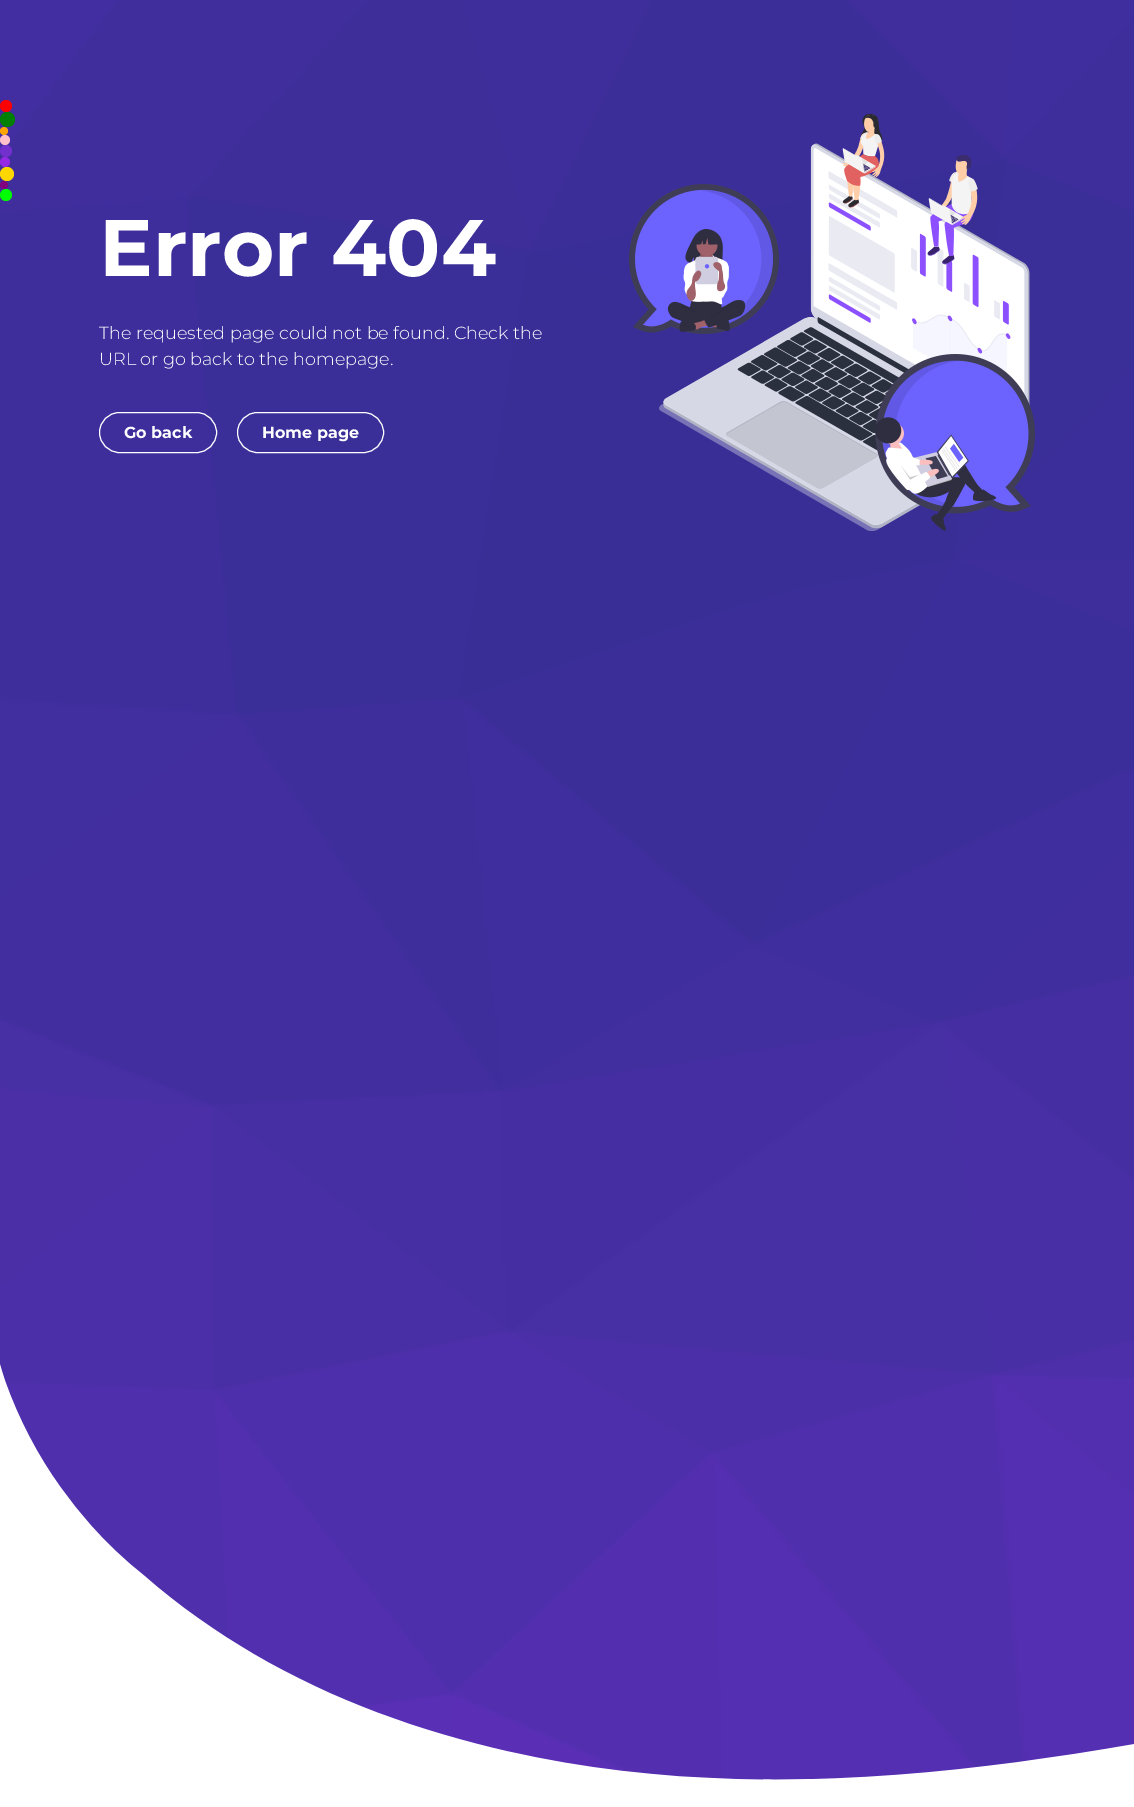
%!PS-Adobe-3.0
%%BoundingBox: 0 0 1134 1807
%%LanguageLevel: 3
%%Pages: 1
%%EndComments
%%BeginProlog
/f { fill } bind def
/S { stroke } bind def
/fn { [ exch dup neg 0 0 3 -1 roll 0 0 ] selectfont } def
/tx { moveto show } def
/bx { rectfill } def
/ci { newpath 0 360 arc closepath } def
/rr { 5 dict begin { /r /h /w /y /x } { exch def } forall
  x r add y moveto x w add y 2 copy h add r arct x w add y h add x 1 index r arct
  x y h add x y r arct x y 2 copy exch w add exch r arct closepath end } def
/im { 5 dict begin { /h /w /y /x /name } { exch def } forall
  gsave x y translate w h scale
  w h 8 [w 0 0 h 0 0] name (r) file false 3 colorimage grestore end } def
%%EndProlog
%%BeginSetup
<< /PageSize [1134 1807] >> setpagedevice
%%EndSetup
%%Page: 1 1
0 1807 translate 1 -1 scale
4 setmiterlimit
1 setgray
0 0 1134 1807 bx
(image0.raw) 0 0 1134 1780 im
1 0 0 setrgbcolor
6 106 6 ci f
0 0.502 0 setrgbcolor
7.5 119.5 7.5 ci f
1 0.647 0 setrgbcolor
4 131 4 ci f
1 0.753 0.796 setrgbcolor
5 140 5 ci f
0.447 0.188 0.804 setrgbcolor
6 151 6 ci f
0.588 0.161 0.902 setrgbcolor
5 162 5 ci f
1 0.843 0 setrgbcolor
7 174 7 ci f
0.502 0 0.502 setrgbcolor
4 185 4 ci f
0 1 0 setrgbcolor
6 195 6 ci f
/Montserrat-Bold 80 fn
1 setgray
(Error 404) 99 276 tx
/Montserrat-Light 17.6 fn
(The requested page could not be found. Check the) 99 339 tx
(URL or go back to the homepage.) 99 365 tx
99.5 412.5 117 40 20 rr S
/Montserrat-Bold 16 fn
(Go back) 124 438 tx
237.5 412.5 146 40 20 rr S
(Home page) 262 438 tx
(image1.raw) 659 114 371 417 im
(image2.raw) 629 184 150 150 im
(image3.raw) 875 354 160 177 im
showpage
%%EOF
